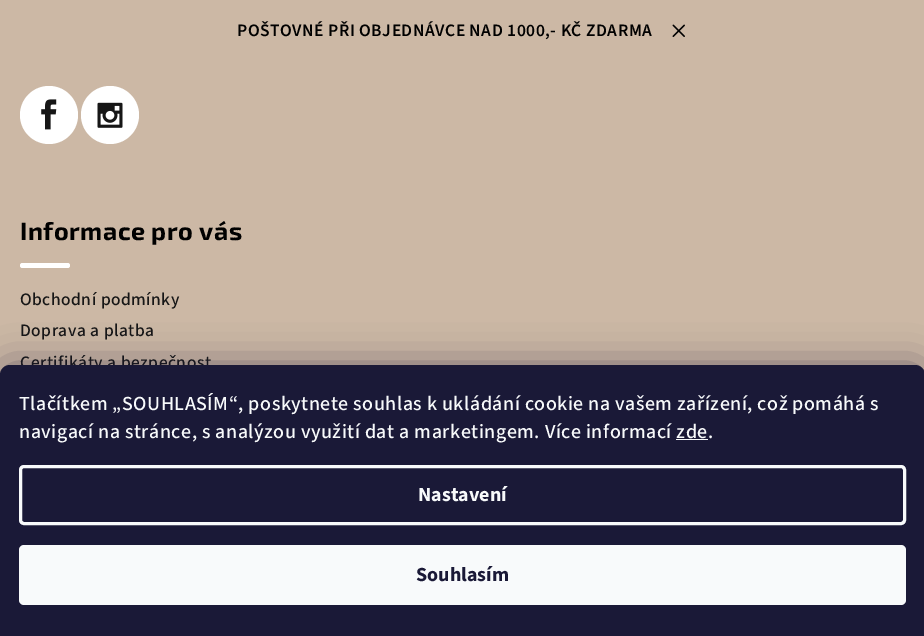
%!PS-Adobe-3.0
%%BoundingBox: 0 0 924 636
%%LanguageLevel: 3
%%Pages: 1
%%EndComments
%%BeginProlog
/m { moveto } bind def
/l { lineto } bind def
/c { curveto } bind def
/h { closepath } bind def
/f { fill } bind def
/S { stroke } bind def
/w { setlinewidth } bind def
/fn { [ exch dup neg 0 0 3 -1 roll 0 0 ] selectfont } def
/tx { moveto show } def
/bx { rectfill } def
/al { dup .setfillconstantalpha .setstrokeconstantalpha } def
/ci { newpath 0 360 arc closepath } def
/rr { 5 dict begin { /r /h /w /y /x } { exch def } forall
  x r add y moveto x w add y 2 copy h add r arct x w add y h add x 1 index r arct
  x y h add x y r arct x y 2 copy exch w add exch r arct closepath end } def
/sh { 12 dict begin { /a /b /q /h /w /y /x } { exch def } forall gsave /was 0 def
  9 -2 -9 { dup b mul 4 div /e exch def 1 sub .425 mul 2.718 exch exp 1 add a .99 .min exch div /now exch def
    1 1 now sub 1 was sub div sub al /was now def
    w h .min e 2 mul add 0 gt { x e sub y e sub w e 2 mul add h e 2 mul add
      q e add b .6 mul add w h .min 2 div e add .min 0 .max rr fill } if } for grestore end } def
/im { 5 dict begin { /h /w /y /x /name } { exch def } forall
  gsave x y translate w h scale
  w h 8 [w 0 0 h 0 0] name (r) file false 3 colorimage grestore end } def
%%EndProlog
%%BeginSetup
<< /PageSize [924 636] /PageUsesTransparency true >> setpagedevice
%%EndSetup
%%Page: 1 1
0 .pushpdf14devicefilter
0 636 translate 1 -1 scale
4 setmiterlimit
0.8 0.722 0.647 setrgbcolor
0 0 924 636 bx
/SourceSans3-SemiBold 17.5 fn
0 setgray
237 36 m 0.5 0 (POŠTOVNÉ PŘI OBJEDNÁVCE NAD 1000,- KČ ZDARMA) ashow
(image0.raw) 672 24 13 13 im
1 setgray
49 115 29 ci f
(image1.raw) 41 99 16 31 im
110 115 29 ci f
(image2.raw) 97 102 26 26 im
/Exo2-Bold 25 fn
0 setgray
20 240 m 0.5 0 (Informace pro vás) ashow
1 setgray
20 263 50 5 2.5 rr f
/SourceSans3-Medium 17.5 fn
0.086 setgray
20 305 m 0.5 0 (Obchodní podmínky) ashow
20 336 m 0.5 0 (Doprava a platba) ashow
20 368 m 0.5 0 (Certifikáty a bezpečnost) ashow
0.106 0.098 0.224 setrgbcolor
0 365 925 271 10 19 0.5 sh
0.102 0.098 0.216 setrgbcolor
10 365 m 915 365 l 920.5 365 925 369.5 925 375 c 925 636 l 0 636 l 0 375 l 0 369.5 4.5 365 10 365 c h f
/SourceSans3-Medium 20 fn
0.973 0.98 0.984 setrgbcolor
19 410 m 0.5 0 (Tlačítkem „SOUHLASÍM“, poskytnete souhlas k ukládání cookie na vašem zařízení, což pomáhá s) ashow
19 438 m 0.5 0 (navigací na stránce, s analýzou využití dat a marketingem. Více informací zde.) ashow
676 439 32 1 bx
3 w
20.5 466.5 884 57 3.5 rr S
/SourceSans3-Bold 20 fn
(Nastavení) 418 501 tx
19 545 887 60 5 rr f
0.102 0.098 0.216 setrgbcolor
(Souhlasím) 416 581 tx
.poppdf14devicefilter showpage
%%EOF
